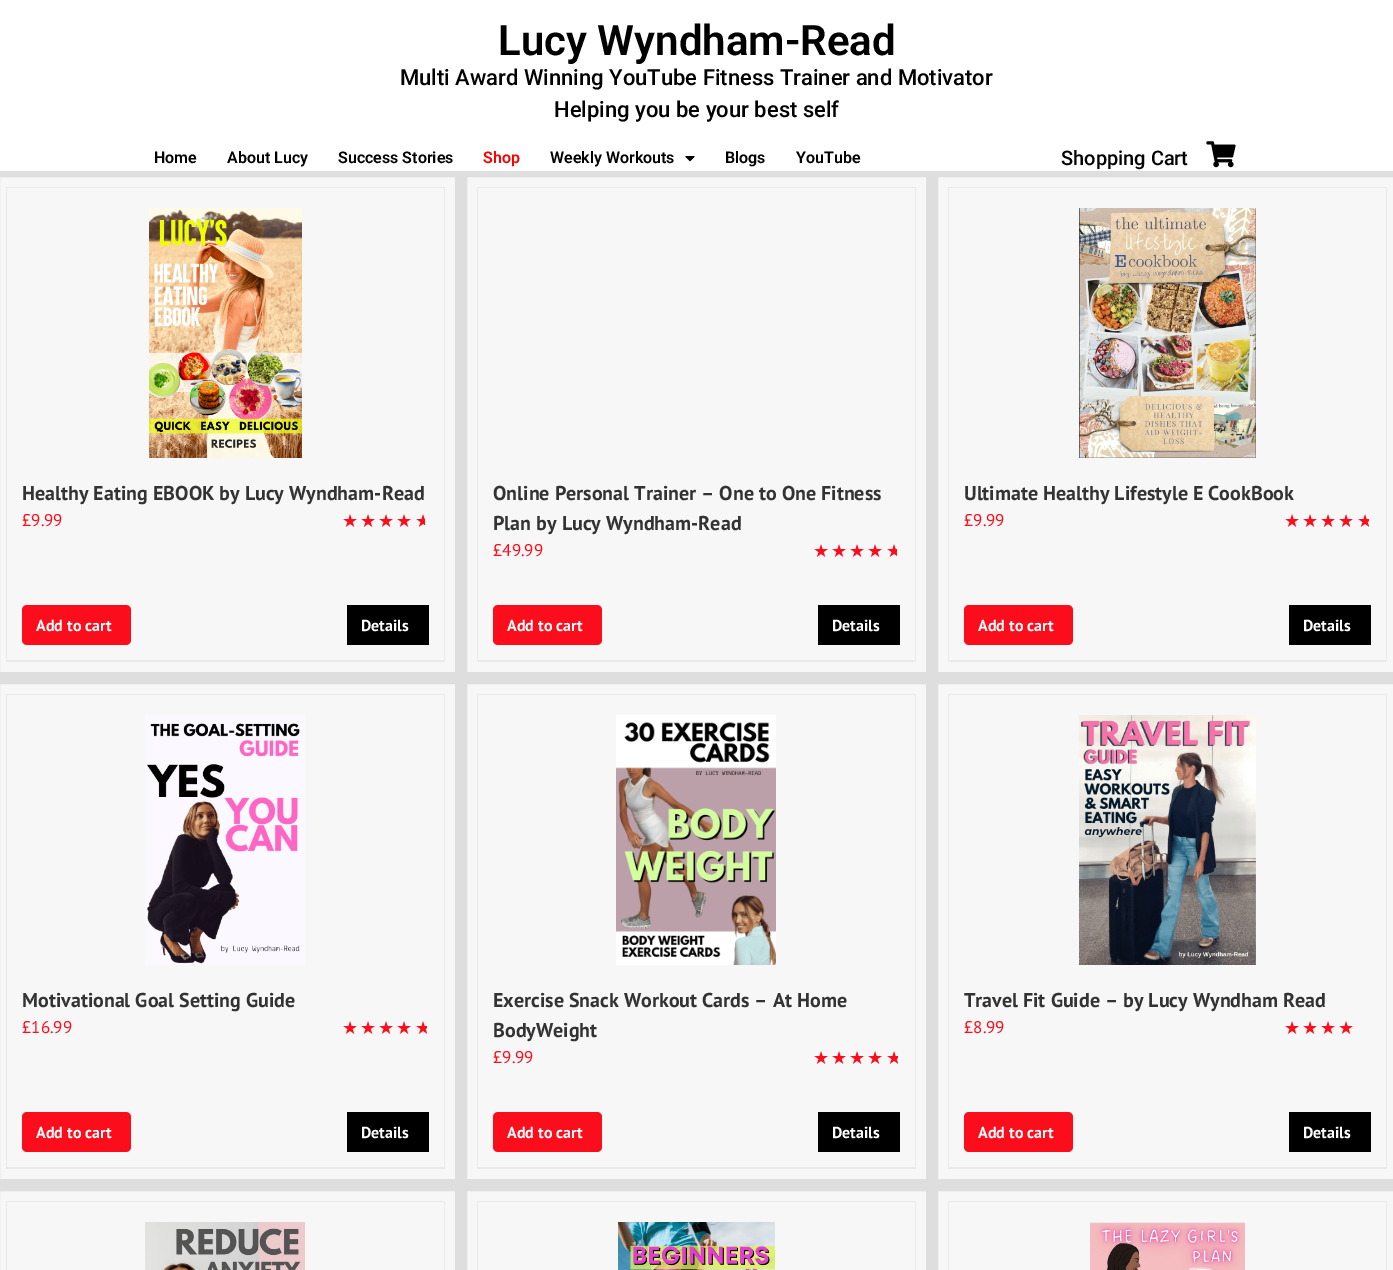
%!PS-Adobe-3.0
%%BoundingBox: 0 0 1393 1270
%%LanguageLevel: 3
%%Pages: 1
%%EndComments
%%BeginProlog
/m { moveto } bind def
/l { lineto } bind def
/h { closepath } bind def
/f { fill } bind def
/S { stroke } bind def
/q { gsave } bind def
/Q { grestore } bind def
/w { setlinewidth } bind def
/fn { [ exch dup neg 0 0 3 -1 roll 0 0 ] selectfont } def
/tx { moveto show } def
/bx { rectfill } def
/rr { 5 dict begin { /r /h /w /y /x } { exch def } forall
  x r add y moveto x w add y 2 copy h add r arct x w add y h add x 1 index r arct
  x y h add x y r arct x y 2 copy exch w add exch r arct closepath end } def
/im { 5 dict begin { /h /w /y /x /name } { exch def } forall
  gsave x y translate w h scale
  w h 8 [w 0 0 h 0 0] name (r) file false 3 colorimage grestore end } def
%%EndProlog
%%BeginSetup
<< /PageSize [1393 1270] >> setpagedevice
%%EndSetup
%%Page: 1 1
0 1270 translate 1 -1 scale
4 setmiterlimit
1 setgray
0 0 1393 1270 bx
/Roboto-SemiBold 42 fn
0 setgray
(Lucy Wyndham-Read) 498 55 tx
/Roboto-Medium 22 fn
(Multi Award Winning YouTube Fitness Trainer and Motivator) 400 85 tx
(Helping you be your best self) 554 117 tx
/Roboto-SemiBold 16 fn
(Home) 154 163 tx
(About Lucy) 227 163 tx
(Success Stories) 338 163 tx
1 0 0 setrgbcolor
(Shop) 483 163 tx
0 setgray
(Weekly Workouts) 550 163 tx
(image0.raw) 685 156 10 6 im
(Blogs) 725 163 tx
(YouTube) 796 163 tx
/Roboto-Medium 20 fn
(Shopping Cart) 1061 165 tx
(image1.raw) 1206 141 30 27 im
0.969 setgray
-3 174 m 458 174 l 458 675 l -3 675 l h q f Q
0.871 setgray
6 w
S
0.922 0.918 0.918 setrgbcolor
6 187 439 1 bx
444 187 1 475 bx
6 660 439 2 bx
6 187 1 475 bx
(image2.raw) 149 208 153 250 im
/PTSans-Bold 20 fn
0.2 setgray
(Healthy Eating EBOOK by Lucy Wyndham-Read) 22 500 tx
/PTSans-Regular 17 fn
0.988 0.051 0.11 setrgbcolor
(£9.99) 22 526 tx
q
342 512 83 17 rectclip
/DejaVuSans-Regular 18 fn
342 527 m 2 0 (★★★★★) ashow
Q
22 605 109 40 5 rr f
/PTSans-Bold 16 fn
1 setgray
(Add to cart) 36 631 tx
0 setgray
347 605 82 40 bx
1 setgray
(Details) 361 631 tx
0.969 setgray
464 174 m 929 174 l 929 675 l 464 675 l h q f Q
0.871 setgray
S
0.922 0.918 0.918 setrgbcolor
477 187 439 1 bx
915 187 1 475 bx
477 660 439 2 bx
477 187 1 475 bx
/PTSans-Bold 20 fn
0.2 setgray
(Online Personal Trainer – One to One Fitness) 493 500 tx
(Plan by Lucy Wyndham-Read) 493 530 tx
/PTSans-Regular 17 fn
0.988 0.051 0.11 setrgbcolor
(£49.99) 493 556 tx
q
813 542 84 17 rectclip
/DejaVuSans-Regular 18 fn
813 557 m 2 0 (★★★★★) ashow
Q
493 605 109 40 5 rr f
/PTSans-Bold 16 fn
1 setgray
(Add to cart) 507 631 tx
0 setgray
818 605 82 40 bx
1 setgray
(Details) 832 631 tx
0.969 setgray
935 174 m 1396 174 l 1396 675 l 935 675 l h q f Q
0.871 setgray
S
0.922 0.918 0.918 setrgbcolor
948 187 439 1 bx
1386 187 1 475 bx
948 660 439 2 bx
948 187 1 475 bx
(image3.raw) 1079 208 177 250 im
/PTSans-Bold 20 fn
0.2 setgray
(Ultimate Healthy Lifestyle E CookBook) 964 500 tx
/PTSans-Regular 17 fn
0.988 0.051 0.11 setrgbcolor
(£9.99) 964 526 tx
q
1284 512 85 17 rectclip
/DejaVuSans-Regular 18 fn
1284 527 m 2 0 (★★★★★) ashow
Q
964 605 109 40 5 rr f
/PTSans-Bold 16 fn
1 setgray
(Add to cart) 978 631 tx
0 setgray
1289 605 82 40 bx
1 setgray
(Details) 1303 631 tx
0.969 setgray
-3 681 m 458 681 l 458 1182 l -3 1182 l h q f Q
0.871 setgray
S
0.922 0.918 0.918 setrgbcolor
6 694 439 1 bx
444 694 1 475 bx
6 1167 439 2 bx
6 694 1 475 bx
(image4.raw) 145 715 160 250 im
/PTSans-Bold 20 fn
0.2 setgray
(Motivational Goal Setting Guide) 22 1007 tx
/PTSans-Regular 17 fn
0.988 0.051 0.11 setrgbcolor
(£16.99) 22 1033 tx
q
342 1019 85 17 rectclip
/DejaVuSans-Regular 18 fn
342 1034 m 2 0 (★★★★★) ashow
Q
22 1112 109 40 5 rr f
/PTSans-Bold 16 fn
1 setgray
(Add to cart) 36 1138 tx
0 setgray
347 1112 82 40 bx
1 setgray
(Details) 361 1138 tx
0.969 setgray
464 681 m 929 681 l 929 1182 l 464 1182 l h q f Q
0.871 setgray
S
0.922 0.918 0.918 setrgbcolor
477 694 439 1 bx
915 694 1 475 bx
477 1167 439 2 bx
477 694 1 475 bx
(image5.raw) 616 715 160 250 im
/PTSans-Bold 20 fn
0.2 setgray
(Exercise Snack Workout Cards – At Home) 493 1007 tx
(BodyWeight) 493 1037 tx
/PTSans-Regular 17 fn
0.988 0.051 0.11 setrgbcolor
(£9.99) 493 1063 tx
q
813 1049 85 17 rectclip
/DejaVuSans-Regular 18 fn
813 1064 m 2 0 (★★★★★) ashow
Q
493 1112 109 40 5 rr f
/PTSans-Bold 16 fn
1 setgray
(Add to cart) 507 1138 tx
0 setgray
818 1112 82 40 bx
1 setgray
(Details) 832 1138 tx
0.969 setgray
935 681 m 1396 681 l 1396 1182 l 935 1182 l h q f Q
0.871 setgray
S
0.922 0.918 0.918 setrgbcolor
948 694 439 1 bx
1386 694 1 475 bx
948 1167 439 2 bx
948 694 1 475 bx
(image6.raw) 1079 715 177 250 im
/PTSans-Bold 20 fn
0.2 setgray
(Travel Fit Guide – by Lucy Wyndham Read) 964 1007 tx
/PTSans-Regular 17 fn
0.988 0.051 0.11 setrgbcolor
(£8.99) 964 1033 tx
/DejaVuSans-Regular 18 fn
1284 1034 m 2 0 (★★★★) ashow
964 1112 109 40 5 rr f
/PTSans-Bold 16 fn
1 setgray
(Add to cart) 978 1138 tx
0 setgray
1289 1112 82 40 bx
1 setgray
(Details) 1303 1138 tx
0.969 setgray
-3 1188 m 458 1188 l 458 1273 l -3 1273 l h q f Q
0.871 setgray
S
0.922 0.918 0.918 setrgbcolor
6 1201 439 1 bx
444 1201 1 69 bx
6 1201 1 69 bx
(image7.raw) 145 1222 160 48 im
0.969 setgray
464 1188 m 929 1188 l 929 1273 l 464 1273 l h q f Q
0.871 setgray
S
0.922 0.918 0.918 setrgbcolor
477 1201 439 1 bx
915 1201 1 69 bx
477 1201 1 69 bx
(image8.raw) 618 1222 157 48 im
0.969 setgray
935 1188 m 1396 1188 l 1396 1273 l 935 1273 l h q f Q
0.871 setgray
S
0.922 0.918 0.918 setrgbcolor
948 1201 439 1 bx
1386 1201 1 69 bx
948 1201 1 69 bx
(image9.raw) 1090 1222 155 48 im
showpage
%%EOF
